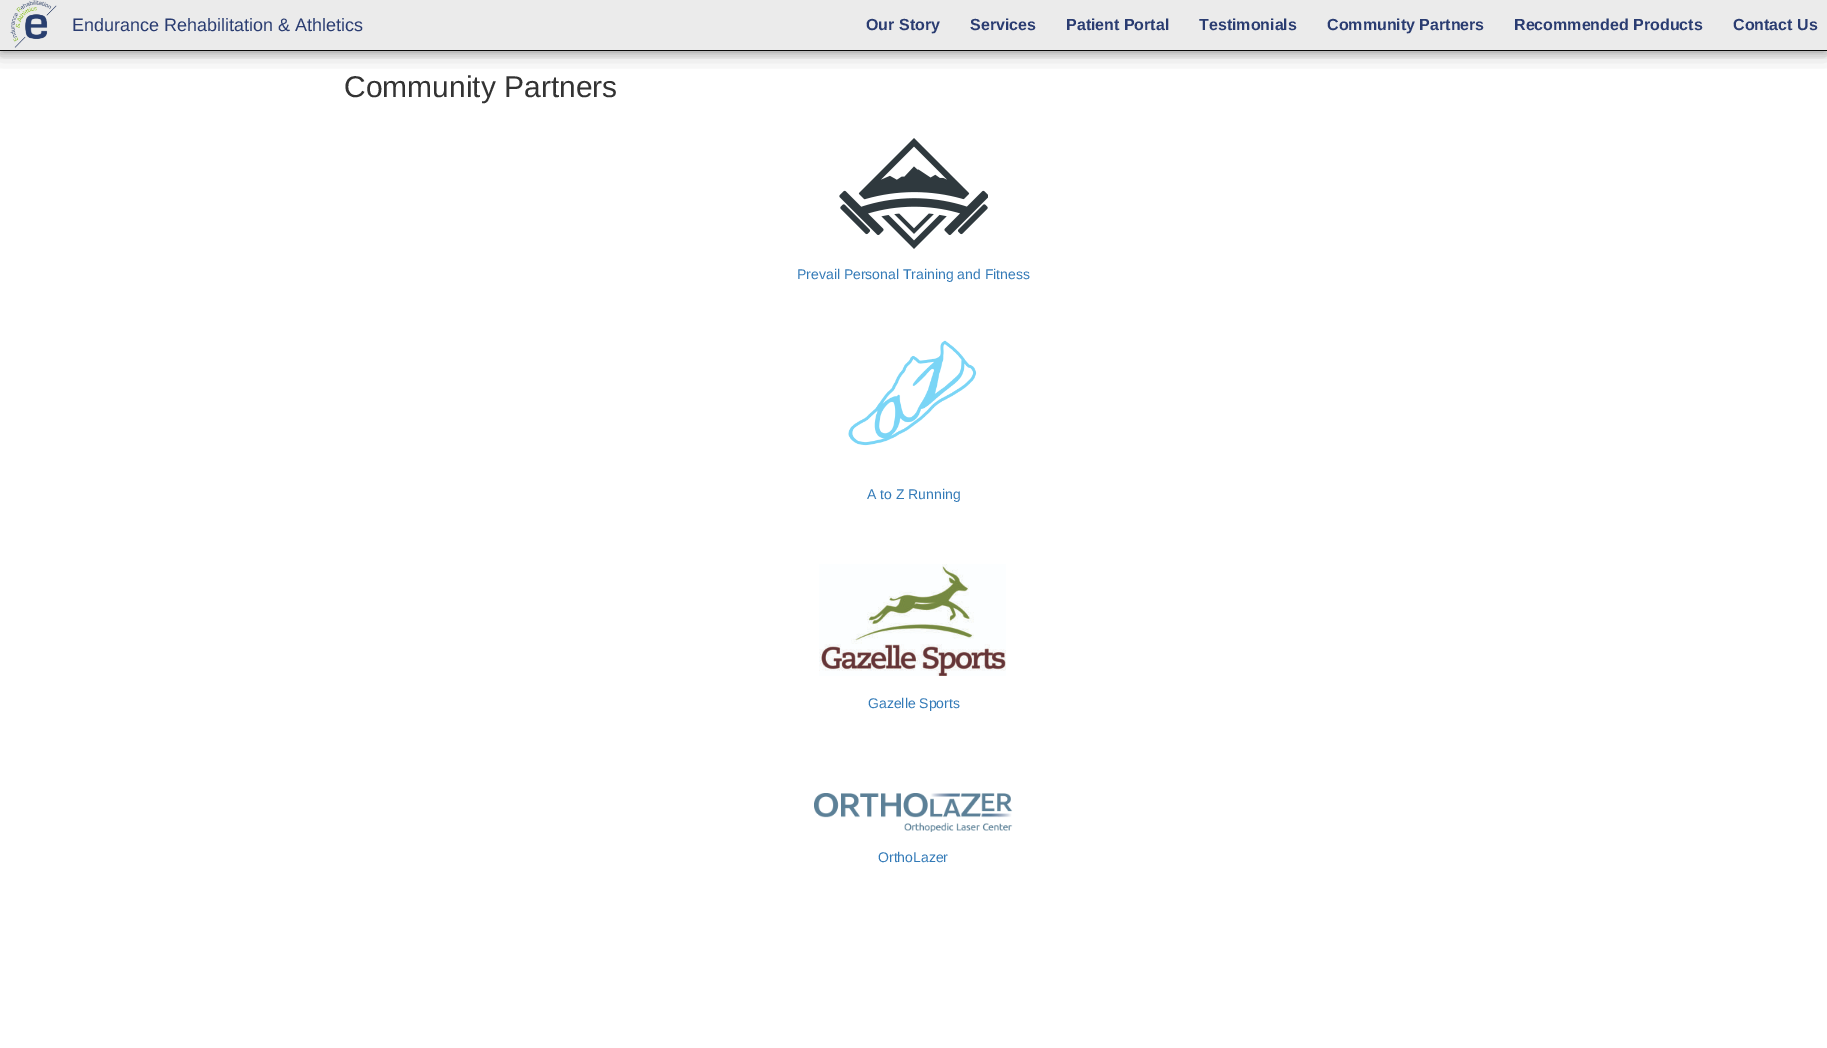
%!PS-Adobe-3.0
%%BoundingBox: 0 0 1827 1048
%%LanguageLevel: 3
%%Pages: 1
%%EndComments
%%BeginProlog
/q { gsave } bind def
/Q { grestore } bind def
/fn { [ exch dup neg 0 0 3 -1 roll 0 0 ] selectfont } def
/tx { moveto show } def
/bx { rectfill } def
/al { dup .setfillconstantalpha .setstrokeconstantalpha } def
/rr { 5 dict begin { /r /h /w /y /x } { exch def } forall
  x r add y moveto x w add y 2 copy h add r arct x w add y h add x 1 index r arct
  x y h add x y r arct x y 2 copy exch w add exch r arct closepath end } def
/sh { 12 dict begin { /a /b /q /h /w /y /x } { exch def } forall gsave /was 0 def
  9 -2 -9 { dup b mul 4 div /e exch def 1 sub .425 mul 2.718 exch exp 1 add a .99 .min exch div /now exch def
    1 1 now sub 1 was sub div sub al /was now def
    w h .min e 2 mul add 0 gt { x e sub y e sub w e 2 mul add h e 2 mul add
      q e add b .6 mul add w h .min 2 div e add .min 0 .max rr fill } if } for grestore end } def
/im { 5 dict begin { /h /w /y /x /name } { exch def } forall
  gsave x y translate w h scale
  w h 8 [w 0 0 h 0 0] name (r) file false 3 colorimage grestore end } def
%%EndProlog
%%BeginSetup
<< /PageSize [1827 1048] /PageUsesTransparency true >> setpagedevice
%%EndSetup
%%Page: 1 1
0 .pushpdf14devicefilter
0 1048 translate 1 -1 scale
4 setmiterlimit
1 setgray
0 0 1827 1048 bx
0.922 setgray
0 0 1827 50 bx
0.031 setgray
0 50 1827 1 bx
q
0 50 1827 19 rectclip
0 setgray
0 6 1827 50 0 10 0.19 sh
Q
q
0 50 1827 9 rectclip
0 setgray
0 4 1827 50 0 4 0.2 sh
Q
(image0.raw) 10 0 47 48 im
/LiberationSans-Regular 18 fn
0.165 0.235 0.443 setrgbcolor
(Endurance Rehabilitation & Athletics) 72 31 tx
/LiberationSans-Bold 16 fn
(Our Story) 866 30 tx
(Services) 970 30 tx
(Patient Portal) 1066 30 tx
(Testimonials) 1199 30 tx
(Community Partners) 1327 30 tx
(Recommended Products) 1514 30 tx
(Contact Us) 1733 30 tx
/LiberationSans-Regular 30 fn
0.2 setgray
(Community Partners) 344 97 tx
(image1.raw) 839 138 149 111 im
/LiberationSans-Regular 14 fn
0.2 0.478 0.718 setrgbcolor
(Prevail Personal Training and Fitness) 797 279 tx
(image2.raw) 848 340 129 106 im
(A to Z Running) 867 499 tx
(image3.raw) 819 564 187 112 im
(Gazelle Sports) 868 708 tx
(image4.raw) 814 793 199 39 im
(OrthoLazer) 878 862 tx
.poppdf14devicefilter showpage
%%EOF
